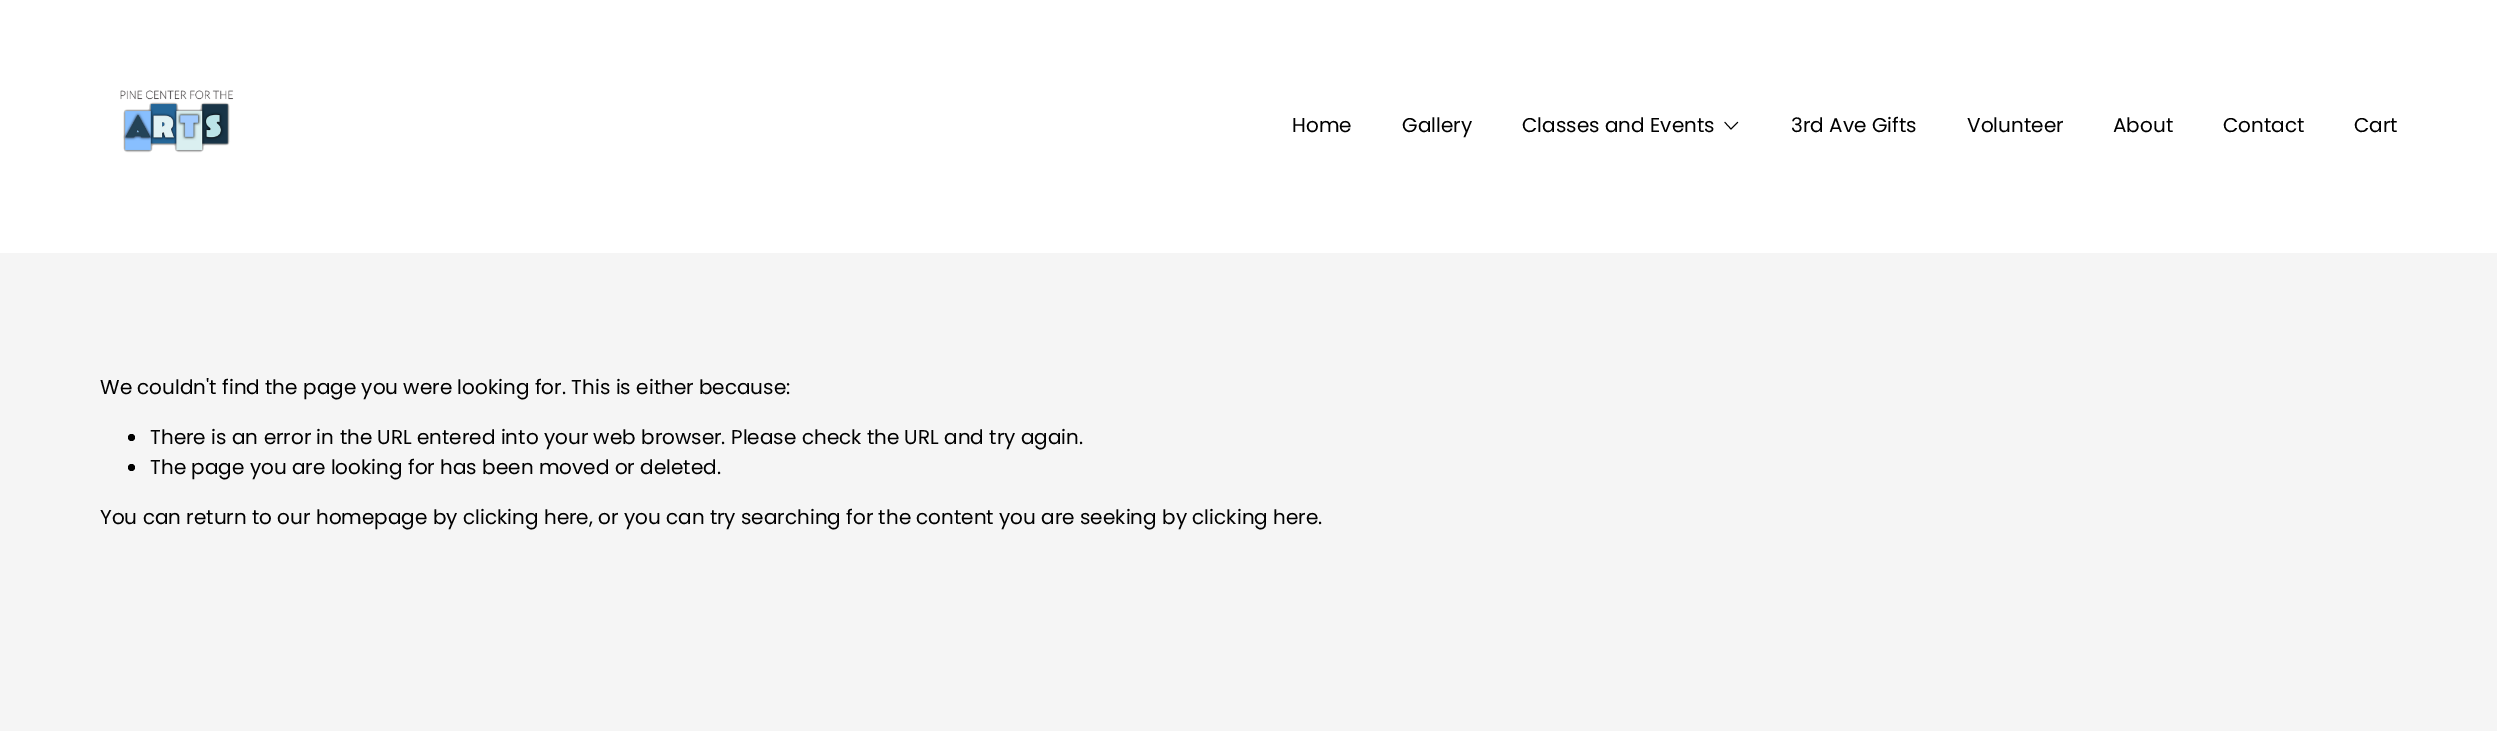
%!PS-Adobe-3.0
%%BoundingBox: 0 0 2497 731
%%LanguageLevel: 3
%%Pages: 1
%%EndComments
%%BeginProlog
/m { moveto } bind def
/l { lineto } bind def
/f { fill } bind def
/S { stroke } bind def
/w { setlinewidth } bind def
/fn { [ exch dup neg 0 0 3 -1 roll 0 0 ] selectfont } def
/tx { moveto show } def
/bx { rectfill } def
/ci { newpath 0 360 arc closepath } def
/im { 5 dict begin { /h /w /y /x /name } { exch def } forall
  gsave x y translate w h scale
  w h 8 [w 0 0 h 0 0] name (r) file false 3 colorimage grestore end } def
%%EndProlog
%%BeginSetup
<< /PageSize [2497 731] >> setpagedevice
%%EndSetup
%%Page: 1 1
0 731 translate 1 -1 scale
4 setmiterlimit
0.961 setgray
0 0 2497 731 bx
1 setgray
0 0 2497 253 bx
(image0.raw) 120 90 114 63 im
/Poppins-Regular 20 fn
0 setgray
(Home) 1292 132 tx
(Gallery) 1402 132 tx
(Classes and Events) 1522 132 tx
0.9 w
2 setlinecap
1737.5 122.5 m 1731 129 l 1725 122.5 l S
(3rd Ave Gifts) 1791 132 tx
(Volunteer) 1967 132 tx
(About) 2113 132 tx
(Contact) 2223 132 tx
(Cart) 2354 132 tx
(We couldn't find the page you were looking for. This is either because:) 100 394 tx
131.5 437.5 3.5 ci f
(There is an error in the URL entered into your web browser. Please check the URL and try again.) 150 444 tx
131.5 467.5 3.5 ci f
(The page you are looking for has been moved or deleted.) 150 474 tx
(You can return to our homepage by clicking here, or you can try searching for the content you are seeking by clicking here.) 100 524 tx
showpage
%%EOF
